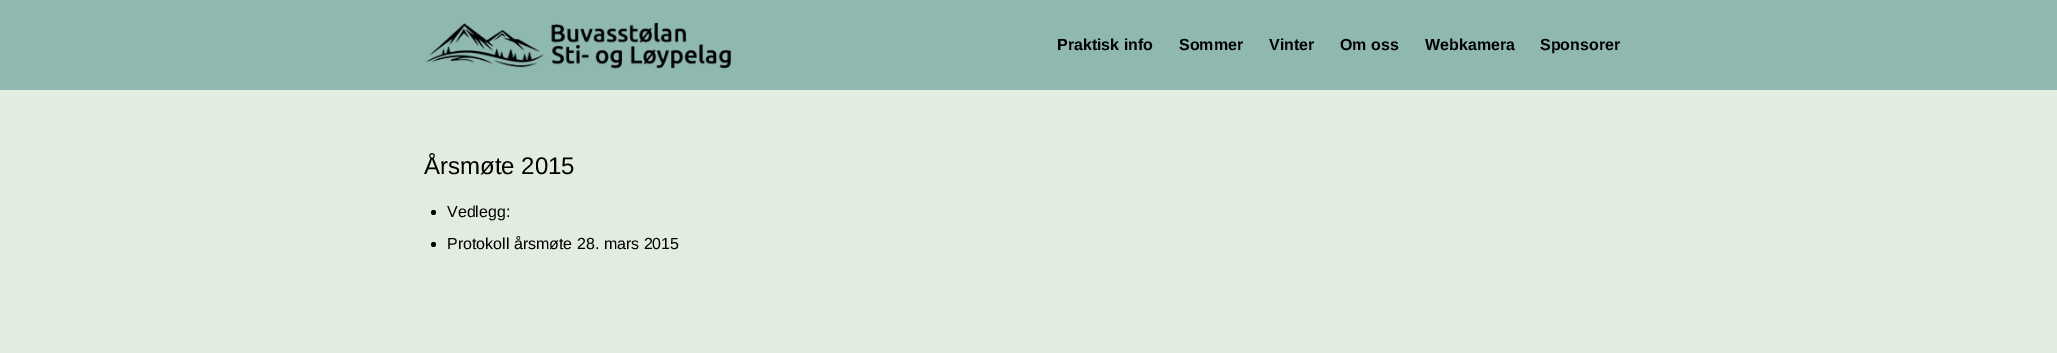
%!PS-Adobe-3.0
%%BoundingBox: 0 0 2057 353
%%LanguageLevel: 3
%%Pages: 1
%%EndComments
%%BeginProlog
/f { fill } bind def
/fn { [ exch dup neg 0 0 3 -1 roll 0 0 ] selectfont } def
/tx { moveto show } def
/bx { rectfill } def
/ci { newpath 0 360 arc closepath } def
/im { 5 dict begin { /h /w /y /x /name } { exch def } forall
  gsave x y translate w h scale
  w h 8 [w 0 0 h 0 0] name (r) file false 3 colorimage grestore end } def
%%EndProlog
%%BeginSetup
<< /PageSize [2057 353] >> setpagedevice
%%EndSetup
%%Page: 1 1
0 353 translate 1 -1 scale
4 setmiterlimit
0.561 0.722 0.694 setrgbcolor
0 0 2057 353 bx
(image0.raw) 426 22 306 47 im
/LiberationSans-Bold 16 fn
0 setgray
(Praktisk info) 1057 50 tx
(Sommer) 1179 50 tx
(Vinter) 1269 50 tx
(Om oss) 1340 50 tx
(Webkamera) 1425 50 tx
(Sponsorer) 1540 50 tx
0.886 0.929 0.878 setrgbcolor
0 90 2057 263 bx
0.576 0.733 0.702 setrgbcolor
0 88 2057 1 bx
/LiberationSans-Regular 24 fn
0 setgray
(Årsmøte 2015) 424 174 tx
433.5 212.5 2.5 ci f
/LiberationSans-Regular 16 fn
(Vedlegg:) 447 217 tx
433.5 244.5 2.5 ci f
(Protokoll årsmøte 28. mars 2015) 447 249 tx
showpage
%%EOF
